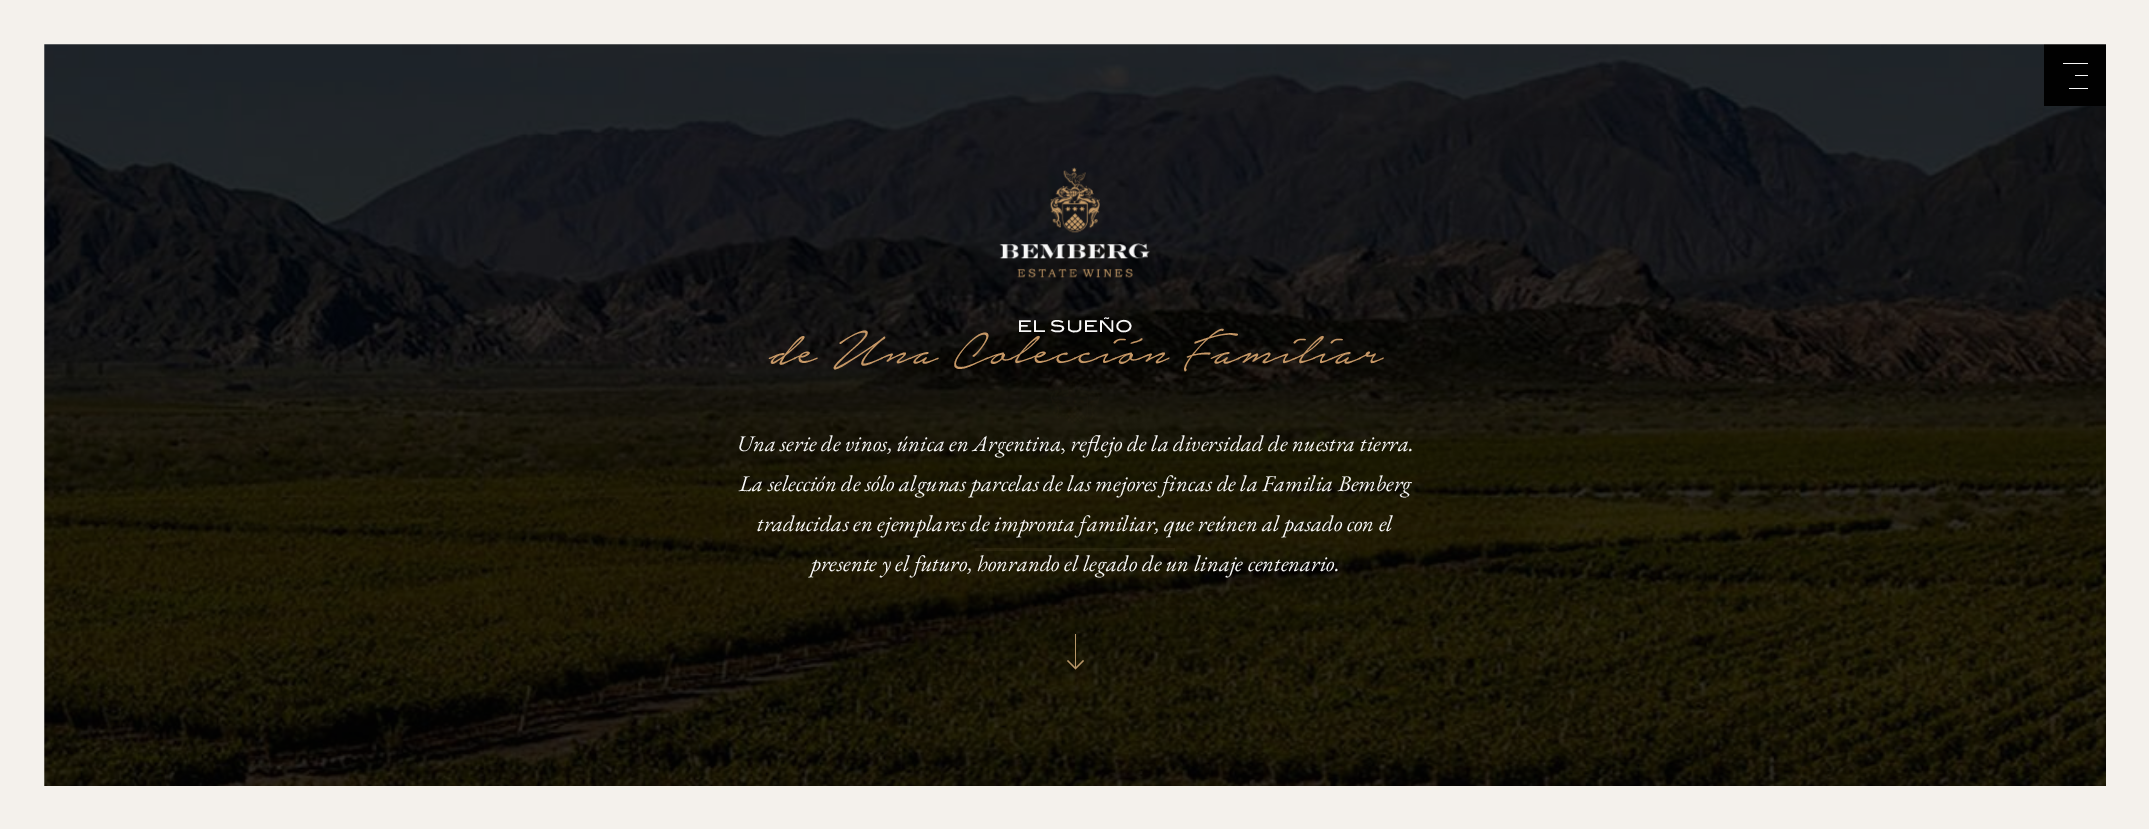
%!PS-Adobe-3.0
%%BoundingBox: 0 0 2149 829
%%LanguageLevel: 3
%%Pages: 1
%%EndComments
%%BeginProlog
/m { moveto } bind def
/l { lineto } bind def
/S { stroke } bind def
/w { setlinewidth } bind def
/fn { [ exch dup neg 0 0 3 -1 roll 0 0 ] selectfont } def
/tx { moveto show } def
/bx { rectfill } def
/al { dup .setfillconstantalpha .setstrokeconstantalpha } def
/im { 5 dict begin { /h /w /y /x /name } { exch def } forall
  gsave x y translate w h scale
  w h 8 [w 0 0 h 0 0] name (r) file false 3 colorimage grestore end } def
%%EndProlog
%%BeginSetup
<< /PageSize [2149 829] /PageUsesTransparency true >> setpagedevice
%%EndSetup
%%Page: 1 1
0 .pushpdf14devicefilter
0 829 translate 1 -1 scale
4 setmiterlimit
1 setgray
0 0 2149 829 bx
(image1.raw) 44 44 2062 742 im
0.004 setgray
2044 44 62 62 bx
0.973 setgray
2063 63 25 1 bx
2075 75 13 1 bx
2069 88 19 1 bx
(image2.raw) 999 167 151 111 im
0.722 0.588 0.408 setrgbcolor
1075 634 1 34 bx
1.2 w
1083.5 660.5 m 1075.5 668.5 l 1067.5 660.5 l S
0.957 0.945 0.925 setrgbcolor
44 w
22 22 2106 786 rectstroke
/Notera-Italic 62.5 fn
0.78 0.596 0.4 setrgbcolor
(de Una Colección Familiar) 768 363 tx
/EBGaramond-Italic 22.5 fn
0.973 setgray
(Una serie de vinos, única en Argentina, reflejo de la diversidad de nuestra tierra.) 737 451 tx
(image0.raw) 1003 362 144 88 im
0.03 al
0.89 0.804 0.706 setrgbcolor
975 548 200 3 bx
0.733 0.62 0.494 setrgbcolor
975 548 200 3 bx
/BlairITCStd-Medium 16.25 fn
1 al
0.973 setgray
(EL SUEÑO) 1017 332 tx
/EBGaramond-Italic 22.5 fn
(La selección de sólo algunas parcelas de las mejores fincas de la Familia Bemberg) 739 491 tx
(traducidas en ejemplares de impronta familiar, que reúnen al pasado con el) 757 531 tx
(presente y el futuro, honrando el legado de un linaje centenario.) 811 571 tx
.poppdf14devicefilter showpage
%%EOF
